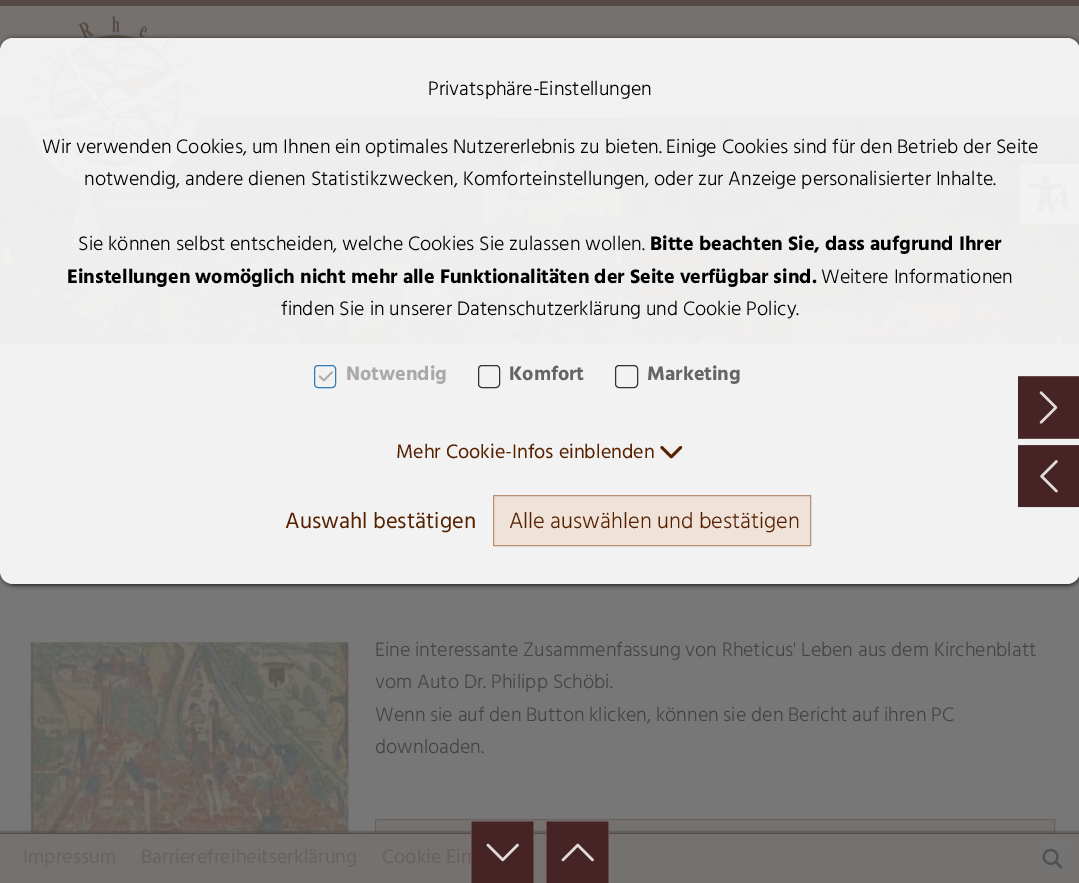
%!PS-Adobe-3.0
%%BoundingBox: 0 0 1079 883
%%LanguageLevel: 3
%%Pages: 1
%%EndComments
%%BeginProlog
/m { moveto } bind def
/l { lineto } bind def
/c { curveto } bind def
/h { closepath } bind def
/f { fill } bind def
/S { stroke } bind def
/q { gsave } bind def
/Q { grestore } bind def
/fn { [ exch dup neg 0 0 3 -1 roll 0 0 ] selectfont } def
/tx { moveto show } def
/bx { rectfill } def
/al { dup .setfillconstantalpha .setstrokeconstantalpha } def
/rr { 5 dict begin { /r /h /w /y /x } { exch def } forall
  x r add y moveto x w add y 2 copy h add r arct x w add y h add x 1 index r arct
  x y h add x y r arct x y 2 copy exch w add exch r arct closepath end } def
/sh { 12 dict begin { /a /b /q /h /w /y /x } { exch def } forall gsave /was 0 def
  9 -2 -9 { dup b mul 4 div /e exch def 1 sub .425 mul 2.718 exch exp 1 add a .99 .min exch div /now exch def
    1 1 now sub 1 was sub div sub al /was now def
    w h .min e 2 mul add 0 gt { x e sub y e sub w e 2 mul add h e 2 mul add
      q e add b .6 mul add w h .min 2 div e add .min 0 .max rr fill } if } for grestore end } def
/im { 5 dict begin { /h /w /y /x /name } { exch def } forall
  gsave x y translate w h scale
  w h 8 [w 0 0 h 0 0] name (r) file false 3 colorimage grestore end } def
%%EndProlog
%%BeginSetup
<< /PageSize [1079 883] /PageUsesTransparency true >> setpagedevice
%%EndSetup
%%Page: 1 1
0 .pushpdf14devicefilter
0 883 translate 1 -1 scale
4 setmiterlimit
0.467 setgray
0 0 1079 883 bx
(image5.raw) 0 120 1079 224 im
0.267 setgray
0 1 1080 120 5 0.5 0.4 sh
0.467 setgray
0 120 1 1 bx
0.455 0.443 0.435 setrgbcolor
0 6 1079 113 bx
0.333 0.294 0.267 setrgbcolor
0 119 1079 1 bx
(image4.raw) 26 15 172 174 im
q 500 117 m 620 117 l 620 119 l 500 119 l h clip newpath
<< /ShadingType 2 /ColorSpace /DeviceRGB /Coords [560 6.2 560 119] /Extend [true true] /Function << /FunctionType 3 /Domain [0 1] /Functions [<< /FunctionType 2 /Domain [0 1] /C0 [0.455 0.443 0.435] /C1 [0.455 0.443 0.435] /N 1 >> << /FunctionType 2 /Domain [0 1] /C0 [0.455 0.443 0.435] /C1 [0.333 0.294 0.267] /N 1 >>] /Bounds [0.98] /Encode [0 1 0 1] >> >> shfill Q
0.75 al
621 161 458 140 bx
1 al
(image6.raw) 1020 164 59 60 im
q
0 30 m 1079 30 l 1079 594 l 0 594 l h 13 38 m 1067 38 l 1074 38 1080 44 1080 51 c 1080 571 l 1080 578 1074 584 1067 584 c 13 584 l 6 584 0 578 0 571 c 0 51 l 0 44 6 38 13 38 c h eoclip newpath
0 setgray
1 39 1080 546 13 2.5 0.8 sh
Q
0.9 al
1 setgray
0 38 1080 546 13 rr f
/HindGuntur-Light 20 fn
1 al
0 setgray
(Privatsphäre-Einstellungen) 428 95 tx
(Wir verwenden Cookies, um Ihnen ein optimales Nutzererlebnis zu bieten. Einige Cookies sind für den Betrieb der Seite) 42 153 tx
(notwendig, andere dienen Statistikzwecken, Komforteinstellungen, oder zur Anzeige personalisierter Inhalte.) 84 185 tx
(Sie können selbst entscheiden, welche Cookies Sie zulassen wollen.) 78 250 tx
/HindGuntur-Bold 20 fn
(Bitte beachten Sie, dass aufgrund Ihrer) 650 250 tx
(Einstellungen womöglich nicht mehr alle Funktionalitäten der Seite verfügbar sind.) 67 283 tx
/HindGuntur-Light 20 fn
(Weitere Informationen) 821 283 tx
(finden Sie in unserer Datenschutzerklärung und Cookie Policy.) 281 315 tx
0.2 0.478 0.718 setrgbcolor
314.5 365.5 21 22 3.5 rr S
(image0.raw) 318 371 15 11 im
/HindGuntur-Bold 20 fn
0.663 setgray
(Notwendig) 346 380 tx
0.2 setgray
478.5 365.5 21 22 3.5 rr S
0.392 setgray
(Komfort) 509 380 tx
0.2 setgray
615.5 365.5 22 22 3.5 rr S
0.392 setgray
(Marketing) 647 380 tx
/HindGuntur-Regular 20 fn
0.341 0.129 0 setrgbcolor
(Mehr Cookie-Infos einblenden) 396 458 tx
(image1.raw) 660 446 23 13 im
/HindGuntur-Regular 22.5 fn
(Auswahl bestätigen) 285 528 tx
0.937 0.886 0.847 setrgbcolor
493.5 495.5 m 810.5 495.5 l 810.5 545.5 l 493.5 545.5 l h q f Q
0.729 0.561 0.443 setrgbcolor
S
/HindGuntur-Light 22.5 fn
0.341 0.129 0 setrgbcolor
(Alle auswählen und bestätigen) 509 528 tx
(image2.raw) 1018 376 61 63 im
0.89 setgray
1018 445 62 63 5 rr f
(image3.raw) 1018 445 61 63 im
0.333 0.294 0.267 setrgbcolor
0 0 1079 6 bx
(image7.raw) 29 640 322 193 im
/HindGuntur-Light 20 fn
0.267 setgray
(Eine interessante Zusammenfassung von Rheticus' Leben aus dem Kirchenblatt) 375 656 tx
(vom Auto Dr. Philipp Schöbi.) 375 688 tx
(Wenn sie auf den Button klicken, können sie den Bericht auf ihren PC) 375 721 tx
(downloaden.) 375 753 tx
0.455 0.443 0.435 setrgbcolor
376 820 678 13 bx
0.412 0.38 0.357 setrgbcolor
375.5 819.5 679 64 rectstroke
0.267 setgray
0 831 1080 52 0 0.5 0.4 sh
0.455 0.443 0.435 setrgbcolor
0 834 1079 49 bx
0.333 0.294 0.267 setrgbcolor
0 833 1079 1 bx
/HindGuntur-Regular 20 fn
0.412 0.38 0.357 setrgbcolor
(Impressum) 23 863 tx
(Barrierefreiheitserklärung) 141 863 tx
(Cookie Ein) 382 863 tx
0.455 0.451 0.447 setrgbcolor
1035.5 840.5 m 1069.5 840.5 l 1069.5 874.5 l 1035.5 874.5 l h q f Q
0.455 setgray
S
(image8.raw) 1042 848 21 21 im
(image9.raw) 471 821 63 62 im
(image10.raw) 546 821 63 62 im
.poppdf14devicefilter showpage
%%EOF
